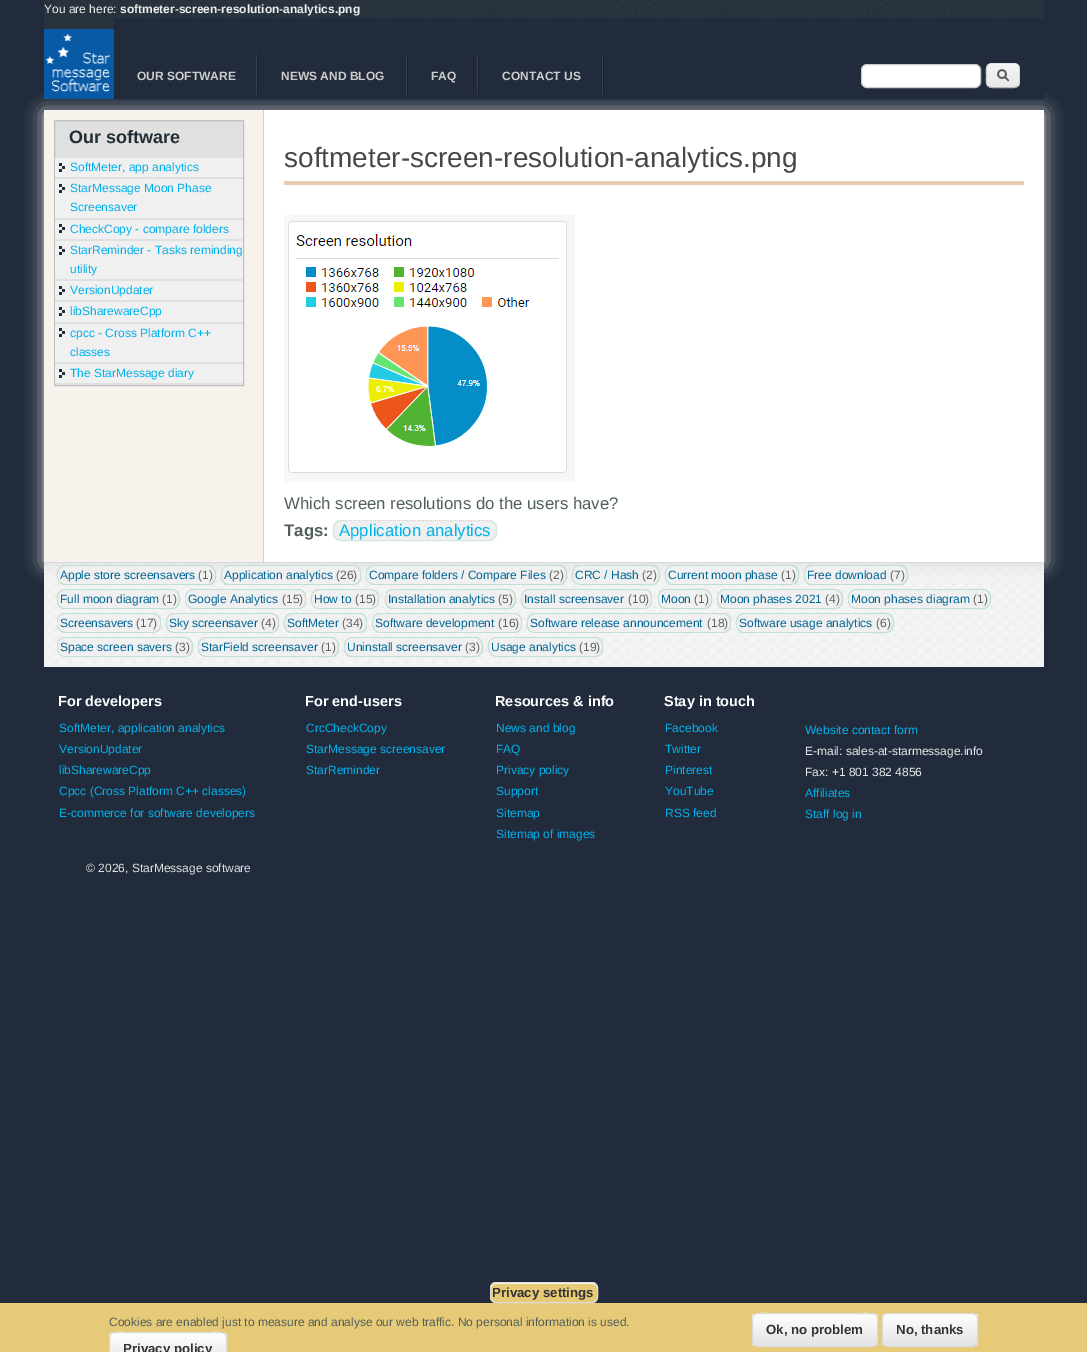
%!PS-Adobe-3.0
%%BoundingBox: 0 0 1087 1352
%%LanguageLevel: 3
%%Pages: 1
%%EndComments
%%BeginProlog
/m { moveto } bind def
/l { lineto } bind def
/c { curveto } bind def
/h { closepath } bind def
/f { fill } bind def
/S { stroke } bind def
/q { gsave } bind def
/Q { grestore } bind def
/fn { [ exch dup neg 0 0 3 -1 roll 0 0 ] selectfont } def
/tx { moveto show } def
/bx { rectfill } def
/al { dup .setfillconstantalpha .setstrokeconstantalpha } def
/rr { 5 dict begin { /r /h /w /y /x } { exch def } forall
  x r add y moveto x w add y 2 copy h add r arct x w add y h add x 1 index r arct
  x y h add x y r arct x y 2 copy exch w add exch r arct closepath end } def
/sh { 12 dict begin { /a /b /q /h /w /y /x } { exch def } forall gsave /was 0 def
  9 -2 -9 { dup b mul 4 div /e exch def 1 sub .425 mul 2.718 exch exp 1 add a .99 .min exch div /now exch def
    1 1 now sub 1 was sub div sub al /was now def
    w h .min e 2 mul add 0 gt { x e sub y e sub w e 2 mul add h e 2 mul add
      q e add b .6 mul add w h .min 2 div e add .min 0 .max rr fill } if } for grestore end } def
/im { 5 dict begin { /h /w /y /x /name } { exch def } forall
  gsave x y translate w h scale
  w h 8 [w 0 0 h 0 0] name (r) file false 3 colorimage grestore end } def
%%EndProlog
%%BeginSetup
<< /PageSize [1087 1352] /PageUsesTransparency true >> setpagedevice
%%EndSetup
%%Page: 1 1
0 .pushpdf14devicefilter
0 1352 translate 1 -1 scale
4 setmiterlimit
0.129 0.169 0.231 setrgbcolor
0 0 1087 1352 bx
(image0.raw) 44 0 1000 29 im
/LiberationSans-Regular 12 fn
0.933 setgray
(You are here:) 44 13 tx
/LiberationSans-Bold 12 fn
(softmeter-screen-resolution-analytics.png) 120 13 tx
(image6.raw) 44 563 1000 104 im
0.812 0.843 0.859 setrgbcolor
44 562 1000 1 bx
0.867 setgray
44 112 1000 452 0 9 1 sh
(image1.raw) 44 29 70 70 im
0.129 0.169 0.231 setrgbcolor
114 18 930 81 bx
(image2.raw) 256 54 2 41 im
0.8 setgray
(OUR SOFTWARE) 137 80 tx
(image2.raw) 406 54 2 41 im
(NEWS AND BLOG) 281 80 tx
(image2.raw) 477 54 2 41 im
(FAQ) 431 80 tx
(image2.raw) 602 54 2 41 im
(CONTACT US) 502 80 tx
1 setgray
861.5 64.5 119 23 5.5 rr q f Q
0.8 setgray
S
(image3.raw) 986 64 34 24 im
1 setgray
992 65 m 1010 65 l 1017.5 65 1019 66.5 1019 71 c 1019 64 1016.5 64 1010.5 64 c 995.5 64 l 989 64 987 64.5 987 71 c 987 68 988 65 992 65 c h 1019 81.5 m 1019 83 l h 987 83 m 987 82 l h eofill
0.894 setgray
988 65 m 989 64 990.5 63.5 992 63.5 c 1014 63.5 l 1015.5 63.5 1017 64 1018 65 c S
q
861 62 159 35 rectclip
0.824 setgray
1018 65 m 1020.5 67.5 1019.5 72.5 1019.5 75.5 c 1019.5 78.5 1020.5 83.5 1018 86 c S
Q
0.706 setgray
1018 86 m 1017 87 1015.5 87.5 1014 87.5 c 992 87.5 l 990.5 87.5 989 87 988 86 c S
0.824 setgray
988 86 m 985.5 83.5 986.5 78.5 986.5 75.5 c 986.5 72.5 985.5 67.5 988 65 c S
0.973 0.949 0.929 setrgbcolor
44 110 219 452 bx
0.878 setgray
54.5 120.5 m 243.5 120.5 l 243.5 385.5 l 54.5 385.5 l h q f Q
0.753 setgray
S
/LiberationSans-Bold 18 fn
0.133 0.18 0.212 setrgbcolor
(Our software) 69 143 tx
0.941 setgray
55 158 188 19 bx
(image4.raw) 59 163 6 9 im
/LiberationSans-Regular 12 fn
0 0.694 0.925 setrgbcolor
(SoftMeter, app analytics) 70 171 tx
0.941 setgray
55 179 188 39 bx
(image4.raw) 59 184 6 9 im
0 0.694 0.925 setrgbcolor
(StarMessage Moon Phase) 70 192 tx
(Screensaver) 70 211 tx
0.941 setgray
55 220 188 19 bx
(image4.raw) 59 224 6 9 im
0 0.694 0.925 setrgbcolor
(CheckCopy - compare folders) 70 233 tx
0.941 setgray
55 241 188 38 bx
(image4.raw) 59 246 6 9 im
0 0.694 0.925 setrgbcolor
(StarReminder - Tasks reminding) 70 254 tx
(utility) 70 273 tx
0.941 setgray
55 281 188 19 bx
(image4.raw) 59 286 6 9 im
0 0.694 0.925 setrgbcolor
(VersionUpdater) 70 294 tx
0.941 setgray
55 302 188 20 bx
(image4.raw) 59 307 6 9 im
0 0.694 0.925 setrgbcolor
(libSharewareCpp) 70 315 tx
0.941 setgray
55 324 188 38 bx
(image4.raw) 59 328 6 9 im
0 0.694 0.925 setrgbcolor
(cpcc - Cross Platform C++) 70 337 tx
(classes) 70 356 tx
0.941 setgray
55 364 188 19 bx
(image4.raw) 59 369 6 9 im
0 0.694 0.925 setrgbcolor
(The StarMessage diary) 70 377 tx
1 setgray
264 110 780 452 bx
0.902 0.8 0.702 setrgbcolor
263 110 1 452 bx
284 181 740 4 bx
/LiberationSans-Regular 28 fn
0.278 setgray
(softmeter-screen-resolution-analytics.png) 284 167 tx
(image5.raw) 284 215 291 267 im
/LiberationSans-Regular 16.75 fn
0.318 0.373 0.361 setrgbcolor
(Which screen resolutions do the users have?) 284 509 tx
/LiberationSans-Bold 16.75 fn
(Tags:) 284 536 tx
0.941 setgray
333 520 164 21 8 rr f
0.753 0.878 0.816 setrgbcolor
[1 1] 0 setdash
341 520.5 m 489 520.5 l 493 520.5 496.5 524 496.5 528 c 496.5 533 l 496.5 537 493 540.5 489 540.5 c 341 540.5 l 337 540.5 333.5 537 333.5 533 c 333.5 528 l 333.5 524 337 520.5 341 520.5 c h S
/LiberationSans-Regular 16.75 fn
0 0.694 0.925 setrgbcolor
(Application analytics) 339 536 tx
0.941 setgray
65 565 m 195 565 l 195 585 l 65 585 l 60.5 585 57 581.5 57 577 c 57 573 l 57 568.5 60.5 565 65 565 c h f
0.753 0.878 0.816 setrgbcolor
65 565 m 195 565 l 195 585 l 63 585 l 61 584 59 583 58 580 c 55 574 58 565 65 565 c h 65 566 m 195 566 l 195 584 l 64 584 l 62 583 60 582 59 581 c 56 576 58 566 65 566 c h eofill
/LiberationSans-Regular 12 fn
0 0.4 0.58 setrgbcolor
(Apple store screensavers) 60 579 tx
0.941 setgray
195 565 m 208 565 l 212.5 565 216 568.5 216 573 c 216 577 l 216 581.5 212.5 585 208 585 c 195 585 l h f
0.753 0.878 0.816 setrgbcolor
195 565 m 199 565 208 564.5 211 565.5 c 218 568.5 218 581.5 211 584.5 c 208 585.5 199 585 195 585 c h 195 566 m 198.5 566 208 565.5 210.5 566.5 c 216.5 569 216.5 581 210.5 583.5 c 208 584.5 198.5 584 195 584 c h eofill
0.376 setgray
(\(1\)) 198 579 tx
0.941 setgray
229 565 m 333 565 l 333 585 l 229 585 l 224.5 585 221 581.5 221 577 c 221 573 l 221 568.5 224.5 565 229 565 c h f
0.753 0.878 0.816 setrgbcolor
229 565 m 333 565 l 333 585 l 227 585 l 218 583 219 565 229 565 c h 229 566 m 333 566 l 333 584 l 229 584 l 225 584 222 581 222 577 c 222 573 l 222 569 225 566 229 566 c h eofill
0 0.4 0.58 setrgbcolor
(Application analytics) 224 579 tx
0.941 setgray
333 565 m 353 565 l 357.5 565 361 568.5 361 573 c 361 577 l 361 581.5 357.5 585 353 585 c 333 585 l h f
0.753 0.878 0.816 setrgbcolor
333 565 m 353 565 l 357.5 565 361 568.5 361 573 c 361 577 l 361 581.5 357.5 585 353 585 c 333 585 l h 333 566 m 353 566 l 357 566 360 569 360 573 c 360 577 l 360 581 357 584 353 584 c 333 584 l h eofill
0.376 setgray
(\(26\)) 336 579 tx
0.941 setgray
374 565 m 546 565 l 546 585 l 374 585 l 369.5 585 366 581.5 366 577 c 366 573 l 366 568.5 369.5 565 374 565 c h f
0.753 0.878 0.816 setrgbcolor
374 565 m 546 565 l 546 585 l 374 585 l 370 585 366 581 366 577 c 366 573 l 366 569 370 565 374 565 c h 374 566 m 546 566 l 546 584 l 374 584 l 370 583 l 364 579 366 566 374 566 c h eofill
0 0.4 0.58 setrgbcolor
(Compare folders / Compare Files) 369 579 tx
0.941 setgray
546 565 m 559 565 l 563.5 565 567 568.5 567 573 c 567 577 l 567 581.5 563.5 585 559 585 c 546 585 l h f
0.753 0.878 0.816 setrgbcolor
546 565 m 550 565 559 564.5 562 565.5 c 569 568.5 569 581.5 562 584.5 c 559 585.5 550 585 546 585 c h 546 566 m 549.5 566 559 565.5 561.5 566.5 c 567.5 569 567.5 581 561.5 583.5 c 559 584.5 549.5 584 546 584 c h eofill
0.376 setgray
(\(2\)) 549 579 tx
0.941 setgray
580 565 m 639 565 l 639 585 l 580 585 l 575.5 585 572 581.5 572 577 c 572 573 l 572 568.5 575.5 565 580 565 c h f
0.753 0.878 0.816 setrgbcolor
580 565 m 639 565 l 639 585 l 590 585 l 588 585 580 586 577 584 c 569 581 570 565 580 565 c h 580 566 m 639 566 l 639 584 l 580 584 l 570 584 570 566 580 566 c h eofill
0 0.4 0.58 setrgbcolor
(CRC / Hash) 575 579 tx
0.941 setgray
639 565 m 652 565 l 656.5 565 660 568.5 660 573 c 660 577 l 660 581.5 656.5 585 652 585 c 639 585 l h f
0.753 0.878 0.816 setrgbcolor
639 565 m 643 565 652 564.5 655 565.5 c 662 568.5 662 581.5 655 584.5 c 652 585.5 643 585 639 585 c h 639 566 m 642.5 566 652 565.5 654.5 566.5 c 660.5 569 660.5 581 654.5 583.5 c 652 584.5 642.5 584 639 584 c h eofill
0.376 setgray
(\(2\)) 642 579 tx
0.941 setgray
673 565 m 778 565 l 778 585 l 673 585 l 668.5 585 665 581.5 665 577 c 665 573 l 665 568.5 668.5 565 673 565 c h f
0.753 0.878 0.816 setrgbcolor
673 565 m 778 565 l 778 585 l 671 585 l 662 583 663 565 673 565 c h 673 566 m 778 566 l 778 584 l 673 584 l 669 584 666 581 666 577 c 666 573 l 666 569 669 566 673 566 c h eofill
0 0.4 0.58 setrgbcolor
(Current moon phase) 668 579 tx
0.941 setgray
778 565 m 791 565 l 795.5 565 799 568.5 799 573 c 799 577 l 799 581.5 795.5 585 791 585 c 778 585 l h f
0.753 0.878 0.816 setrgbcolor
778 565 m 782 565 791 564.5 794 565.5 c 801 568.5 801 581.5 794 584.5 c 791 585.5 782 585 778 585 c h 778 566 m 781.5 566 791 565.5 793.5 566.5 c 799.5 569 799.5 581 793.5 583.5 c 791 584.5 781.5 584 778 584 c h eofill
0.376 setgray
(\(1\)) 781 579 tx
0.941 setgray
812 565 m 887 565 l 887 585 l 812 585 l 807.5 585 804 581.5 804 577 c 804 573 l 804 568.5 807.5 565 812 565 c h f
0.753 0.878 0.816 setrgbcolor
812 565 m 887 565 l 887 585 l 812 585 l 801 585 801 565 812 565 c h 812 566 m 887 566 l 887 584 l 812 584 l 808 584 805 581 805 577 c 805 573 l 805 569 808 566 812 566 c h eofill
0 0.4 0.58 setrgbcolor
(Free download) 807 579 tx
0.941 setgray
887 565 m 900 565 l 904.5 565 908 568.5 908 573 c 908 577 l 908 581.5 904.5 585 900 585 c 887 585 l h f
0.753 0.878 0.816 setrgbcolor
887 565 m 891 565 900 564.5 903 565.5 c 910 568.5 910 581.5 903 584.5 c 900 585.5 891 585 887 585 c h 887 566 m 890.5 566 900 565.5 902.5 566.5 c 908.5 569 908.5 581 902.5 583.5 c 900 584.5 890.5 584 887 584 c h eofill
0.376 setgray
(\(7\)) 890 579 tx
0.941 setgray
65 589 m 159 589 l 159 609 l 65 609 l 60.5 609 57 605.5 57 601 c 57 597 l 57 592.5 60.5 589 65 589 c h f
0.753 0.878 0.816 setrgbcolor
65 589 m 159 589 l 159 609 l 63 609 l 54 607 55 589 65 589 c h 65 590 m 159 590 l 159 608 l 64 608 l 55 606 56 590 65 590 c h eofill
0 0.4 0.58 setrgbcolor
(Full moon diagram) 60 603 tx
0.941 setgray
159 589 m 172 589 l 176.5 589 180 592.5 180 597 c 180 601 l 180 605.5 176.5 609 172 609 c 159 609 l h f
0.753 0.878 0.816 setrgbcolor
159 589 m 163 589 172 588.5 175 589.5 c 182 592.5 182 605.5 175 608.5 c 172 609.5 163 609 159 609 c h 159 590 m 162.5 590 172 589.5 174.5 590.5 c 180.5 593 180.5 605 174.5 607.5 c 172 608.5 162.5 608 159 608 c h eofill
0.376 setgray
(\(1\)) 162 603 tx
0.941 setgray
193 589 m 278 589 l 278 609 l 193 609 l 188.5 609 185 605.5 185 601 c 185 597 l 185 592.5 188.5 589 193 589 c h f
0.753 0.878 0.816 setrgbcolor
193 589 m 278 589 l 278 609 l 193 609 l 189 609 185 605 185 601 c 185 597 l 185 593 189 589 193 589 c h 193 590 m 278 590 l 278 608 l 193 608 l 183 608 183 590 193 590 c h eofill
0 0.4 0.58 setrgbcolor
(Google Analytics) 188 603 tx
0.941 setgray
278 589 m 298 589 l 302.5 589 306 592.5 306 597 c 306 601 l 306 605.5 302.5 609 298 609 c 278 609 l h f
0.753 0.878 0.816 setrgbcolor
278 589 m 298 589 l 302.5 589 306 592.5 306 597 c 306 601 l 306 605.5 302.5 609 298 609 c 278 609 l h 278 590 m 298 590 l 302 590 305 593 305 597 c 305 601 l 305 605 302 608 298 608 c 278 608 l h eofill
0.376 setgray
(\(15\)) 282 603 tx
0.941 setgray
319 589 m 352 589 l 352 609 l 319 609 l 314.5 609 311 605.5 311 601 c 311 597 l 311 592.5 314.5 589 319 589 c h f
0.753 0.878 0.816 setrgbcolor
319 589 m 352 589 l 352 609 l 330 609 l 326 609 320 610 316 608 c 308 605 309 589 319 589 c h 319 590 m 352 590 l 352 608 l 319 608 l 315 608 312 605 312 601 c 312 597 l 312 593 315 590 319 590 c h eofill
0 0.4 0.58 setrgbcolor
(How to) 314 603 tx
0.941 setgray
352 589 m 371 589 l 375.5 589 379 592.5 379 597 c 379 601 l 379 605.5 375.5 609 371 609 c 352 609 l h f
0.753 0.878 0.816 setrgbcolor
352 589 m 371 589 l 375.5 589 379 592.5 379 597 c 379 601 l 379 605.5 375.5 609 371 609 c 352 609 l h 352 590 m 371 590 l 375 590 378 593 378 597 c 378 601 l 378 605 375 608 371 608 c 352 608 l h eofill
0.376 setgray
(\(15\)) 355 603 tx
0.941 setgray
393 589 m 495 589 l 495 609 l 393 609 l 388.5 609 385 605.5 385 601 c 385 597 l 385 592.5 388.5 589 393 589 c h f
0.753 0.878 0.816 setrgbcolor
393 589 m 495 589 l 495 609 l 391 609 l 382 607 383 589 393 589 c h 393 590 m 495 590 l 495 608 l 393 608 l 389 608 386 605 386 601 c 386 597 l 386 593 389 590 393 590 c h eofill
0 0.4 0.58 setrgbcolor
(Installation analytics) 388 603 tx
0.941 setgray
495 589 m 508 589 l 512.5 589 516 592.5 516 597 c 516 601 l 516 605.5 512.5 609 508 609 c 495 609 l h f
0.753 0.878 0.816 setrgbcolor
495 589 m 499 589 508 588.5 511 589.5 c 518 592.5 518 605.5 511 608.5 c 508 609.5 499 609 495 609 c h 495 590 m 498.5 590 508 589.5 510.5 590.5 c 516.5 593 516.5 605 510.5 607.5 c 508 608.5 498.5 608 495 608 c h eofill
0.376 setgray
(\(5\)) 498 603 tx
0.941 setgray
529 589 m 624 589 l 624 609 l 529 609 l 524.5 609 521 605.5 521 601 c 521 597 l 521 592.5 524.5 589 529 589 c h f
0.753 0.878 0.816 setrgbcolor
529 589 m 624 589 l 624 609 l 527 609 l 518 607 519 589 529 589 c h 529 590 m 624 590 l 624 608 l 528 608 l 519 606 520 590 529 590 c h eofill
0.941 setgray
624 589 m 644 589 l 648.5 589 652 592.5 652 597 c 652 601 l 652 605.5 648.5 609 644 609 c 624 609 l h f
0.753 0.878 0.816 setrgbcolor
624 589 m 644 589 l 648.5 589 652 592.5 652 597 c 652 601 l 652 605.5 648.5 609 644 609 c 624 609 l h 624 590 m 644 590 l 648 590 651 593 651 597 c 651 601 l 651 605 648 608 644 608 c 624 608 l h eofill
0 0.4 0.58 setrgbcolor
(Install screensaver) 524 603 tx
0.376 setgray
(\(10\)) 628 603 tx
0.941 setgray
666 589 m 691 589 l 691 609 l 666 609 l 661.5 609 658 605.5 658 601 c 658 597 l 658 592.5 661.5 589 666 589 c h f
0.753 0.878 0.816 setrgbcolor
666 589 m 691 589 l 691 609 l 666 609 l 661.5 609 658 605.5 658 601 c 658 597 l 658 592.5 661.5 589 666 589 c h 666 590 m 691 590 l 691 608 l 666 608 l 662 608 659 605 659 601 c 659 597 l 659 593 662 590 666 590 c h eofill
0 0.4 0.58 setrgbcolor
(Moon) 661 603 tx
0.941 setgray
691 589 m 704 589 l 708.5 589 712 592.5 712 597 c 712 601 l 712 605.5 708.5 609 704 609 c 691 609 l h f
0.753 0.878 0.816 setrgbcolor
691 589 m 695 589 704 588.5 707 589.5 c 714 592.5 714 605.5 707 608.5 c 704 609.5 695 609 691 609 c h 691 590 m 694.5 590 704 589.5 706.5 590.5 c 712.5 593 712.5 605 706.5 607.5 c 704 608.5 694.5 608 691 608 c h eofill
0.376 setgray
(\(1\)) 694 603 tx
0.941 setgray
725 589 m 822 589 l 822 609 l 725 609 l 720.5 609 717 605.5 717 601 c 717 597 l 717 592.5 720.5 589 725 589 c h f
0.753 0.878 0.816 setrgbcolor
725 589 m 822 589 l 822 609 l 723 609 l 714 607 715 589 725 589 c h 725 590 m 822 590 l 822 608 l 724 608 l 715 606 716 590 725 590 c h eofill
0 0.4 0.58 setrgbcolor
(Moon phases 2021) 720 603 tx
0.941 setgray
822 589 m 835 589 l 839.5 589 843 592.5 843 597 c 843 601 l 843 605.5 839.5 609 835 609 c 822 609 l h f
0.753 0.878 0.816 setrgbcolor
822 589 m 826 589 835 588.5 838 589.5 c 845 592.5 845 605.5 838 608.5 c 835 609.5 826 609 822 609 c h 822 590 m 825.5 590 835 589.5 837.5 590.5 c 843.5 593 843.5 605 837.5 607.5 c 835 608.5 825.5 608 822 608 c h eofill
0.376 setgray
(\(4\)) 825 603 tx
0.941 setgray
856 589 m 970 589 l 970 609 l 856 609 l 851.5 609 848 605.5 848 601 c 848 597 l 848 592.5 851.5 589 856 589 c h f
0.753 0.878 0.816 setrgbcolor
856 589 m 970 589 l 970 609 l 856 609 l 852 609 848 605 848 601 c 848 597 l 848 593 852 589 856 589 c h 856 590 m 970 590 l 970 608 l 855 608 l 852 607 850 606 850 604 c 847 599 849 590 856 590 c h eofill
0 0.4 0.58 setrgbcolor
(Moon phases diagram) 851 603 tx
0.941 setgray
970 589 m 983 589 l 987.5 589 991 592.5 991 597 c 991 601 l 991 605.5 987.5 609 983 609 c 970 609 l h f
0.753 0.878 0.816 setrgbcolor
970 589 m 974 589 983 588.5 986 589.5 c 993 592.5 993 605.5 986 608.5 c 983 609.5 974 609 970 609 c h 970 590 m 973.5 590 983 589.5 985.5 590.5 c 991.5 593 991.5 605 985.5 607.5 c 983 608.5 973.5 608 970 608 c h eofill
0.376 setgray
(\(1\)) 973 603 tx
0.941 setgray
65 613 m 133 613 l 133 633 l 65 633 l 60.5 633 57 629.5 57 625 c 57 621 l 57 616.5 60.5 613 65 613 c h f
0.753 0.878 0.816 setrgbcolor
65 613 m 133 613 l 133 633 l 65 633 l 61 633 57 629 57 625 c 57 621 l 57 617 61 613 65 613 c h 65 614 m 133 614 l 133 632 l 76 632 l 76 632 66 633 62 631 c 55 628 56 614 65 614 c h eofill
0 0.4 0.58 setrgbcolor
(Screensavers) 60 627 tx
0.941 setgray
133 613 m 153 613 l 157.5 613 161 616.5 161 621 c 161 625 l 161 629.5 157.5 633 153 633 c 133 633 l h f
0.753 0.878 0.816 setrgbcolor
133 613 m 153 613 l 157.5 613 161 616.5 161 621 c 161 625 l 161 629.5 157.5 633 153 633 c 133 633 l h 133 614 m 153 614 l 157 614 160 617 160 621 c 160 625 l 160 629 157 632 153 632 c 133 632 l h eofill
0.376 setgray
(\(17\)) 136 627 tx
0.941 setgray
174 613 m 258 613 l 258 633 l 174 633 l 169.5 633 166 629.5 166 625 c 166 621 l 166 616.5 169.5 613 174 613 c h f
0.753 0.878 0.816 setrgbcolor
174 613 m 258 613 l 258 633 l 172 633 l 163 631 164 613 174 613 c h 174 614 m 258 614 l 258 632 l 173 632 l 164 630 165 614 174 614 c h eofill
0 0.4 0.58 setrgbcolor
(Sky screensaver) 169 627 tx
0.941 setgray
258 613 m 271 613 l 275.5 613 279 616.5 279 621 c 279 625 l 279 629.5 275.5 633 271 633 c 258 633 l h f
0.753 0.878 0.816 setrgbcolor
258 613 m 262 613 271 612.5 274 613.5 c 281 616.5 281 629.5 274 632.5 c 271 633.5 262 633 258 633 c h 258 614 m 261.5 614 271 613.5 273.5 614.5 c 279.5 617 279.5 629 273.5 631.5 c 271 632.5 261.5 632 258 632 c h eofill
0.376 setgray
(\(4\)) 261 627 tx
0.941 setgray
292 613 m 339 613 l 339 633 l 292 633 l 287.5 633 284 629.5 284 625 c 284 621 l 284 616.5 287.5 613 292 613 c h f
0.753 0.878 0.816 setrgbcolor
292 613 m 339 613 l 339 633 l 290 633 l 288 632 287 631 285 629 c 282 624 284 613 292 613 c h 292 614 m 339 614 l 339 632 l 291 632 l 282 630 283 614 292 614 c h eofill
0 0.4 0.58 setrgbcolor
(SoftMeter) 287 627 tx
0.941 setgray
339 613 m 359 613 l 363.5 613 367 616.5 367 621 c 367 625 l 367 629.5 363.5 633 359 633 c 339 633 l h f
0.753 0.878 0.816 setrgbcolor
339 613 m 359 613 l 363.5 613 367 616.5 367 621 c 367 625 l 367 629.5 363.5 633 359 633 c 339 633 l h 339 614 m 359 614 l 363 614 366 617 366 621 c 366 625 l 366 629 363 632 359 632 c 339 632 l h eofill
0.376 setgray
(\(34\)) 342 627 tx
0.941 setgray
380 613 m 494 613 l 494 633 l 380 633 l 375.5 633 372 629.5 372 625 c 372 621 l 372 616.5 375.5 613 380 613 c h f
0.753 0.878 0.816 setrgbcolor
380 613 m 494 613 l 494 633 l 380 633 l 376 633 372 629 372 625 c 372 621 l 372 617 376 613 380 613 c h 380 614 m 494 614 l 494 632 l 379 632 l 376 631 374 630 374 628 c 371 623 373 614 380 614 c h eofill
0.941 setgray
494 613 m 514 613 l 518.5 613 522 616.5 522 621 c 522 625 l 522 629.5 518.5 633 514 633 c 494 633 l h f
0.753 0.878 0.816 setrgbcolor
494 613 m 514 613 l 518.5 613 522 616.5 522 621 c 522 625 l 522 629.5 518.5 633 514 633 c 494 633 l h 494 614 m 514 614 l 518 614 521 617 521 621 c 521 625 l 521 629 518 632 514 632 c 494 632 l h eofill
0 0.4 0.58 setrgbcolor
(Software development) 375 627 tx
0.376 setgray
(\(16\)) 498 627 tx
0.941 setgray
535 613 m 703 613 l 703 633 l 535 633 l 530.5 633 527 629.5 527 625 c 527 621 l 527 616.5 530.5 613 535 613 c h f
0.753 0.878 0.816 setrgbcolor
535 613 m 703 613 l 703 633 l 533 633 l 529 631 l 524 626 527 613 535 613 c h 535 614 m 703 614 l 703 632 l 535 632 l 531 631 l 525 627 527 614 535 614 c h eofill
0.941 setgray
703 613 m 723 613 l 727.5 613 731 616.5 731 621 c 731 625 l 731 629.5 727.5 633 723 633 c 703 633 l h f
0.753 0.878 0.816 setrgbcolor
703 613 m 723 613 l 727.5 613 731 616.5 731 621 c 731 625 l 731 629.5 727.5 633 723 633 c 703 633 l h 703 614 m 723 614 l 727 614 730 617 730 621 c 730 625 l 730 629 727 632 723 632 c 703 632 l h eofill
0 0.4 0.58 setrgbcolor
(Software release announcement) 530 627 tx
0.376 setgray
(\(18\)) 707 627 tx
0.941 setgray
744 613 m 873 613 l 873 633 l 744 633 l 739.5 633 736 629.5 736 625 c 736 621 l 736 616.5 739.5 613 744 613 c h f
0.753 0.878 0.816 setrgbcolor
744 613 m 873 613 l 873 633 l 742 633 l 740 632 738 631 737 628 c 734 622 737 613 744 613 c h 744 614 m 873 614 l 873 632 l 743 632 l 741 631 739 630 738 629 c 735 624 737 614 744 614 c h eofill
0 0.4 0.58 setrgbcolor
(Software usage analytics) 739 627 tx
0.941 setgray
873 613 m 886 613 l 890.5 613 894 616.5 894 621 c 894 625 l 894 629.5 890.5 633 886 633 c 873 633 l h f
0.753 0.878 0.816 setrgbcolor
873 613 m 877 613 886 612.5 889 613.5 c 896 616.5 896 629.5 889 632.5 c 886 633.5 877 633 873 633 c h 873 614 m 876.5 614 886 613.5 888.5 614.5 c 894.5 617 894.5 629 888.5 631.5 c 886 632.5 876.5 632 873 632 c h eofill
0.376 setgray
(\(6\)) 876 627 tx
0.941 setgray
65 637 m 172 637 l 172 657 l 65 657 l 60.5 657 57 653.5 57 649 c 57 645 l 57 640.5 60.5 637 65 637 c h f
0.753 0.878 0.816 setrgbcolor
65 637 m 172 637 l 172 657 l 65 657 l 61 657 57 653 57 649 c 57 645 l 57 641 61 637 65 637 c h 65 638 m 172 638 l 172 656 l 65 656 l 61 656 58 653 58 649 c 58 645 l 58 641 61 638 65 638 c h eofill
0 0.4 0.58 setrgbcolor
(Space screen savers) 60 651 tx
0.941 setgray
172 637 m 185 637 l 189.5 637 193 640.5 193 645 c 193 649 l 193 653.5 189.5 657 185 657 c 172 657 l h f
0.753 0.878 0.816 setrgbcolor
172 637 m 176 637 185 636.5 188 637.5 c 195 640.5 195 653.5 188 656.5 c 185 657.5 176 657 172 657 c h 172 638 m 175.5 638 185 637.5 187.5 638.5 c 193.5 641 193.5 653 187.5 655.5 c 185 656.5 175.5 656 172 656 c h eofill
0.376 setgray
(\(3\)) 175 651 tx
0.941 setgray
206 637 m 318 637 l 318 657 l 206 657 l 201.5 657 198 653.5 198 649 c 198 645 l 198 640.5 201.5 637 206 637 c h f
0.753 0.878 0.816 setrgbcolor
206 637 m 318 637 l 318 657 l 206 657 l 202 657 198 653 198 649 c 198 645 l 198 641 202 637 206 637 c h 206 638 m 318 638 l 318 656 l 205 656 l 202 655 200 654 200 652 c 197 647 199 638 206 638 c h eofill
0 0.4 0.58 setrgbcolor
(StarField screensaver) 201 651 tx
0.941 setgray
318 637 m 331 637 l 335.5 637 339 640.5 339 645 c 339 649 l 339 653.5 335.5 657 331 657 c 318 657 l h f
0.753 0.878 0.816 setrgbcolor
318 637 m 322 637 331 636.5 334 637.5 c 341 640.5 341 653.5 334 656.5 c 331 657.5 322 657 318 657 c h 318 638 m 321.5 638 331 637.5 333.5 638.5 c 339.5 641 339.5 653 333.5 655.5 c 331 656.5 321.5 656 318 656 c h eofill
0.376 setgray
(\(1\)) 321 651 tx
0.941 setgray
352 637 m 462 637 l 462 657 l 352 657 l 347.5 657 344 653.5 344 649 c 344 645 l 344 640.5 347.5 637 352 637 c h f
0.753 0.878 0.816 setrgbcolor
352 637 m 462 637 l 462 657 l 350 657 l 341 655 342 637 352 637 c h 352 638 m 462 638 l 462 656 l 352 656 l 348 656 345 653 345 649 c 345 645 l 345 641 348 638 352 638 c h eofill
0 0.4 0.58 setrgbcolor
(Uninstall screensaver) 347 651 tx
0.941 setgray
462 637 m 475 637 l 479.5 637 483 640.5 483 645 c 483 649 l 483 653.5 479.5 657 475 657 c 462 657 l h f
0.753 0.878 0.816 setrgbcolor
462 637 m 466 637 475 636.5 478 637.5 c 485 640.5 485 653.5 478 656.5 c 475 657.5 466 657 462 657 c h 462 638 m 465.5 638 475 637.5 477.5 638.5 c 483.5 641 483.5 653 477.5 655.5 c 475 656.5 465.5 656 462 656 c h eofill
0.376 setgray
(\(3\)) 465 651 tx
0.941 setgray
496 637 m 576 637 l 576 657 l 496 657 l 491.5 657 488 653.5 488 649 c 488 645 l 488 640.5 491.5 637 496 637 c h f
0.753 0.878 0.816 setrgbcolor
496 637 m 576 637 l 576 657 l 509 657 l 509 657 497 658 493 656 c 485 653 486 637 496 637 c h 496 638 m 576 638 l 576 656 l 496 656 l 492 656 489 653 489 649 c 489 645 l 489 641 492 638 496 638 c h eofill
0 0.4 0.58 setrgbcolor
(Usage analytics) 491 651 tx
0.941 setgray
576 637 m 595 637 l 599.5 637 603 640.5 603 645 c 603 649 l 603 653.5 599.5 657 595 657 c 576 657 l h f
0.753 0.878 0.816 setrgbcolor
576 637 m 595 637 l 599.5 637 603 640.5 603 645 c 603 649 l 603 653.5 599.5 657 595 657 c 576 657 l h 576 638 m 595 638 l 599 638 602 641 602 645 c 602 649 l 602 653 599 656 595 656 c 576 656 l h eofill
0.376 setgray
(\(19\)) 579 651 tx
/LiberationSans-Bold 14.5 fn
1 setgray
(For developers) 58 706 tx
/LiberationSans-Regular 12 fn
0 0.694 0.925 setrgbcolor
(SoftMeter, application analytics) 59 732 tx
(VersionUpdater) 59 753 tx
(libSharewareCpp) 59 774 tx
(Cpcc \(Cross Platform C++ classes\)) 59 795 tx
(E-commerce for software developers) 59 817 tx
/LiberationSans-Bold 14.5 fn
1 setgray
(For end-users) 305 706 tx
/LiberationSans-Regular 12 fn
0 0.694 0.925 setrgbcolor
(CrcCheckCopy) 306 732 tx
(StarMessage screensaver) 306 753 tx
(StarReminder) 306 774 tx
/LiberationSans-Bold 14.5 fn
1 setgray
(Resources & info) 495 706 tx
/LiberationSans-Regular 12 fn
0 0.694 0.925 setrgbcolor
(News and blog) 496 732 tx
(FAQ) 496 753 tx
(Privacy policy) 496 774 tx
(Support) 496 795 tx
(Sitemap) 496 817 tx
(Sitemap of images) 496 838 tx
/LiberationSans-Bold 14.5 fn
1 setgray
(Stay in touch) 664 706 tx
/LiberationSans-Regular 12 fn
0 0.694 0.925 setrgbcolor
(Facebook) 665 732 tx
(Twitter) 665 753 tx
(Pinterest) 665 774 tx
(YouTube) 665 795 tx
(RSS feed) 665 817 tx
(Website contact form) 805 734 tx
0.91 setgray
(E-mail: sales-at-starmessage.info) 805 755 tx
(Fax: +1 801 382 4856) 805 776 tx
0 0.694 0.925 setrgbcolor
(Affiliates) 805 797 tx
(Staff log in) 805 818 tx
0.878 setgray
(© 2026, StarMessage software) 86 872 tx
0.902 0.792 0.471 setrgbcolor
0 1303 1087 49 bx
490 1282 108 21 6 rr f
1 setgray
496 1284 m 592 1284 l 595 1284 597 1286 597 1289 c 597 1279 581 1283 576 1283 c 512 1283 l 507 1283 491 1279 491 1289 c 491 1286 493 1284 496 1284 c h f
0.859 setgray
[] 0 setdash
490.5 1282.5 107 20 5.5 rr S
/LiberationSans-Bold 13.25 fn
0.2 setgray
(Privacy settings) 492 1297 tx
/LiberationSans-Regular 12 fn
0.318 0.373 0.361 setrgbcolor
(Cookies are enabled just to measure and analyse our web traffic. No personal information is used.) 109 1326 tx
q
109 1332 118 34 6 rr clip newpath
q 109 1333 m 227 1333 l 227 1352 l 109 1352 l h clip newpath
<< /ShadingType 2 /ColorSpace /DeviceRGB /Coords [168 1333 168 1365] /Extend [true true] /Function << /FunctionType 2 /Domain [0 1] /C0 [1 1 1] /C1 [0.89 0.89 0.89] /N 1 >> >> shfill Q
Q
1 setgray
115 1334 m 221 1334 l 224 1334 226 1336 226 1339 c 226 1328 208 1333 203 1333 c 133 1333 l 128 1333 110 1328 110 1339 c 110 1336 112 1334 115 1334 c h f
0.859 setgray
109.5 1332.5 117 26 5.5 rr S
/LiberationSans-Bold 13.25 fn
0.2 setgray
(Privacy policy) 123 1353 tx
q
752 1313 126 34 6 rr clip newpath
q 752 1314 m 878 1314 l 878 1346 l 752 1346 l h clip newpath
<< /ShadingType 2 /ColorSpace /DeviceRGB /Coords [815 1314 815 1346] /Extend [true true] /Function << /FunctionType 2 /Domain [0 1] /C0 [1 1 1] /C1 [0.89 0.89 0.89] /N 1 >> >> shfill Q
Q
1 setgray
758 1315 m 872 1315 l 875 1315 877 1317 877 1320 c 877 1309 857 1314 853 1314 c 777 1314 l 773 1314 753 1309 753 1320 c 753 1317 755 1315 758 1315 c h f
0.859 setgray
752.5 1313.5 125 33 5.5 rr S
0.2 setgray
(Ok, no problem) 766 1334 tx
q
882 1313 96 34 6 rr clip newpath
q 882 1314 m 978 1314 l 978 1346 l 882 1346 l h clip newpath
<< /ShadingType 2 /ColorSpace /DeviceRGB /Coords [930 1314 930 1346] /Extend [true true] /Function << /FunctionType 2 /Domain [0 1] /C0 [1 1 1] /C1 [0.89 0.89 0.89] /N 1 >> >> shfill Q
Q
1 setgray
888 1315 m 972 1315 l 975 1315 977 1317 977 1320 c 977 1311 964 1314 958 1314 c 902 1314 l 896 1314 883 1311 883 1320 c 883 1317 885 1315 888 1315 c h f
0.859 setgray
882.5 1313.5 95 33 5.5 rr S
0.2 setgray
(No, thanks) 896 1334 tx
.poppdf14devicefilter showpage
%%EOF
